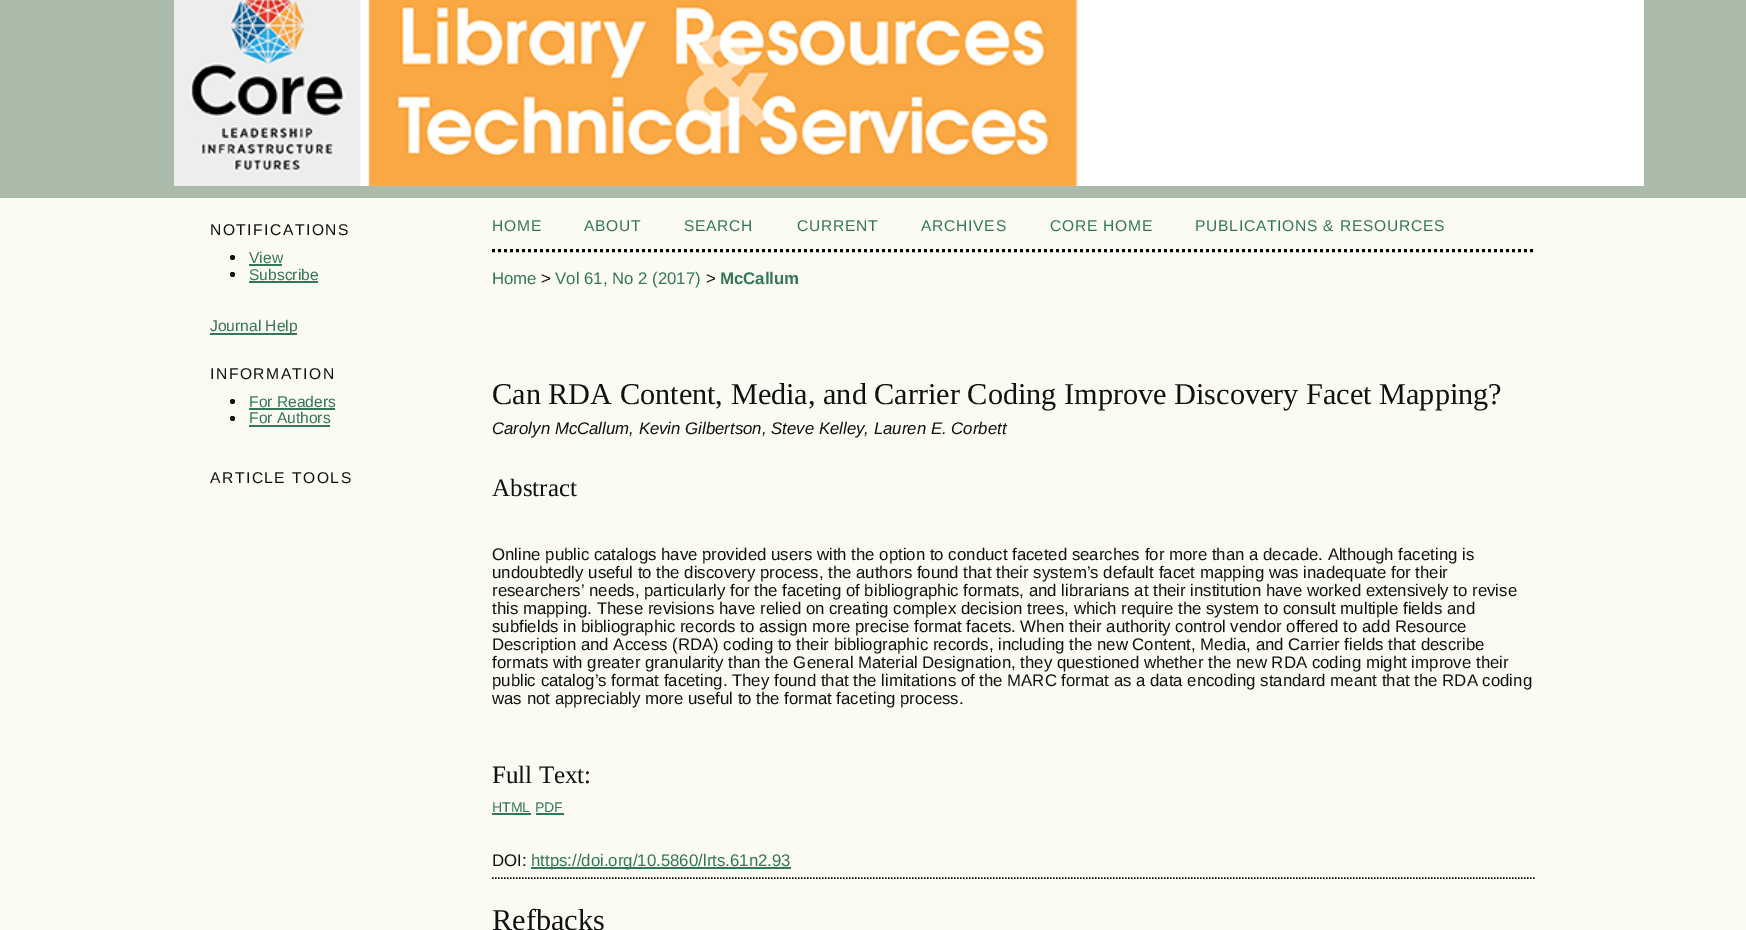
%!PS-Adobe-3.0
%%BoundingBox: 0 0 1746 930
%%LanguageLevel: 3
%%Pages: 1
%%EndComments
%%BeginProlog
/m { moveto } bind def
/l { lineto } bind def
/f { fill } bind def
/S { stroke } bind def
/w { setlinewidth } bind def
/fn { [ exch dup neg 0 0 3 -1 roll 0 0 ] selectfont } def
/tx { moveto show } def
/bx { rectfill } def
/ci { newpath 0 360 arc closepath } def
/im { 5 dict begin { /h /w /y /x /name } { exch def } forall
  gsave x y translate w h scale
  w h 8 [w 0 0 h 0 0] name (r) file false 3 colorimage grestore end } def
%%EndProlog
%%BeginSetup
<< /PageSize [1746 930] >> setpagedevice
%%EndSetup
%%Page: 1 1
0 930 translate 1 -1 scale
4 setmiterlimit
0.984 0.984 0.953 setrgbcolor
0 0 1746 930 bx
0.667 0.733 0.667 setrgbcolor
0 0 1746 198 bx
(image0.raw) 174 0 1470 186 im
/LiberationSans-Regular 15.6 fn
0.067 setgray
210 235 m 1.5 0 (NOTIFICATIONS) ashow
232.5 257.5 2.5 ci f
0.2 0.467 0.333 setrgbcolor
(View) 249 263 tx
249 264 33 2 bx
0.067 setgray
232.5 274.5 2.5 ci f
0.2 0.467 0.333 setrgbcolor
(Subscribe) 249 280 tx
249 281 69 2 bx
210 333 87 2 bx
(Journal Help) 210 331 tx
0.067 setgray
210 379 m 1.5 0 (INFORMATION) ashow
232.5 401.5 2.5 ci f
0.2 0.467 0.333 setrgbcolor
(For Readers) 249 407 tx
249 408 86 2 bx
0.067 setgray
232.5 418.5 2.5 ci f
0.2 0.467 0.333 setrgbcolor
(For Authors) 249 423 tx
249 425 81 2 bx
0.067 setgray
210 483 m 1.5 0 (ARTICLE TOOLS) ashow
0 setgray
3 w
[3 3] 0 setdash
492 250.5 m 1536 250.5 l S
0.2 0.467 0.333 setrgbcolor
492 231 m 0.75 0 (HOME) ashow
584 231 m 0.75 0 (ABOUT) ashow
684 231 m 0.75 0 (SEARCH) ashow
797 231 m 0.75 0 (CURRENT) ashow
921 231 m 0.75 0 (ARCHIVES) ashow
1050 231 m 0.75 0 (CORE HOME) ashow
1195 231 m 0.75 0 (PUBLICATIONS & RESOURCES) ashow
/LiberationSans-Regular 16.8 fn
(Home) 492 284 tx
0.067 setgray
(>) 541 284 tx
0.2 0.467 0.333 setrgbcolor
(Vol 61, No 2 \(2017\)) 555 284 tx
0.067 setgray
(>) 706 284 tx
/LiberationSans-Bold 16.8 fn
0.2 0.467 0.333 setrgbcolor
(McCallum) 720 284 tx
/LiberationSerif-Regular 30.25 fn
0.067 setgray
(Can RDA Content, Media, and Carrier Coding Improve Discovery Facet Mapping?) 492 404 tx
/LiberationSans-Italic 16.8 fn
(Carolyn McCallum, Kevin Gilbertson, Steve Kelley, Lauren E. Corbett) 492 434 tx
/LiberationSerif-Regular 25 fn
(Abstract) 492 496 tx
/LiberationSans-Regular 16.8 fn
(Online public catalogs have provided users with the option to conduct faceted searches for more than a decade. Although faceting is) 492 560 tx
(undoubtedly useful to the discovery process, the authors found that their system’s default facet mapping was inadequate for their) 492 578 tx
(researchers’ needs, particularly for the faceting of bibliographic formats, and librarians at their institution have worked extensively to revise) 492 596 tx
(this mapping. These revisions have relied on creating complex decision trees, which require the system to consult multiple fields and) 492 614 tx
(subfields in bibliographic records to assign more precise format facets. When their authority control vendor offered to add Resource) 492 632 tx
(Description and Access \(RDA\) coding to their bibliographic records, including the new Content, Media, and Carrier fields that describe) 492 650 tx
(formats with greater granularity than the General Material Designation, they questioned whether the new RDA coding might improve their) 492 668 tx
(public catalog’s format faceting. They found that the limitations of the MARC format as a data encoding standard meant that the RDA coding) 492 686 tx
(was not appreciably more useful to the format faceting process.) 492 704 tx
/LiberationSerif-Regular 25 fn
(Full Text:) 492 783 tx
/LiberationSans-Regular 14 fn
0.2 0.467 0.333 setrgbcolor
(HTML) 492 812 tx
492 813 39 2 bx
(PDF) 535 812 tx
536 813 28 2 bx
/LiberationSans-Regular 16.8 fn
0.067 setgray
(DOI:) 492 866 tx
0.2 0.467 0.333 setrgbcolor
531 867 260 2 bx
(https://doi.org/10.5860/lrts.61n2.93) 531 866 tx
0 setgray
1.5 w
[1.5 1.5] 0 setdash
492 878 m 1536 878 l S
/LiberationSerif-Regular 30.25 fn
0.067 setgray
(Refbacks) 492 930 tx
showpage
%%EOF
